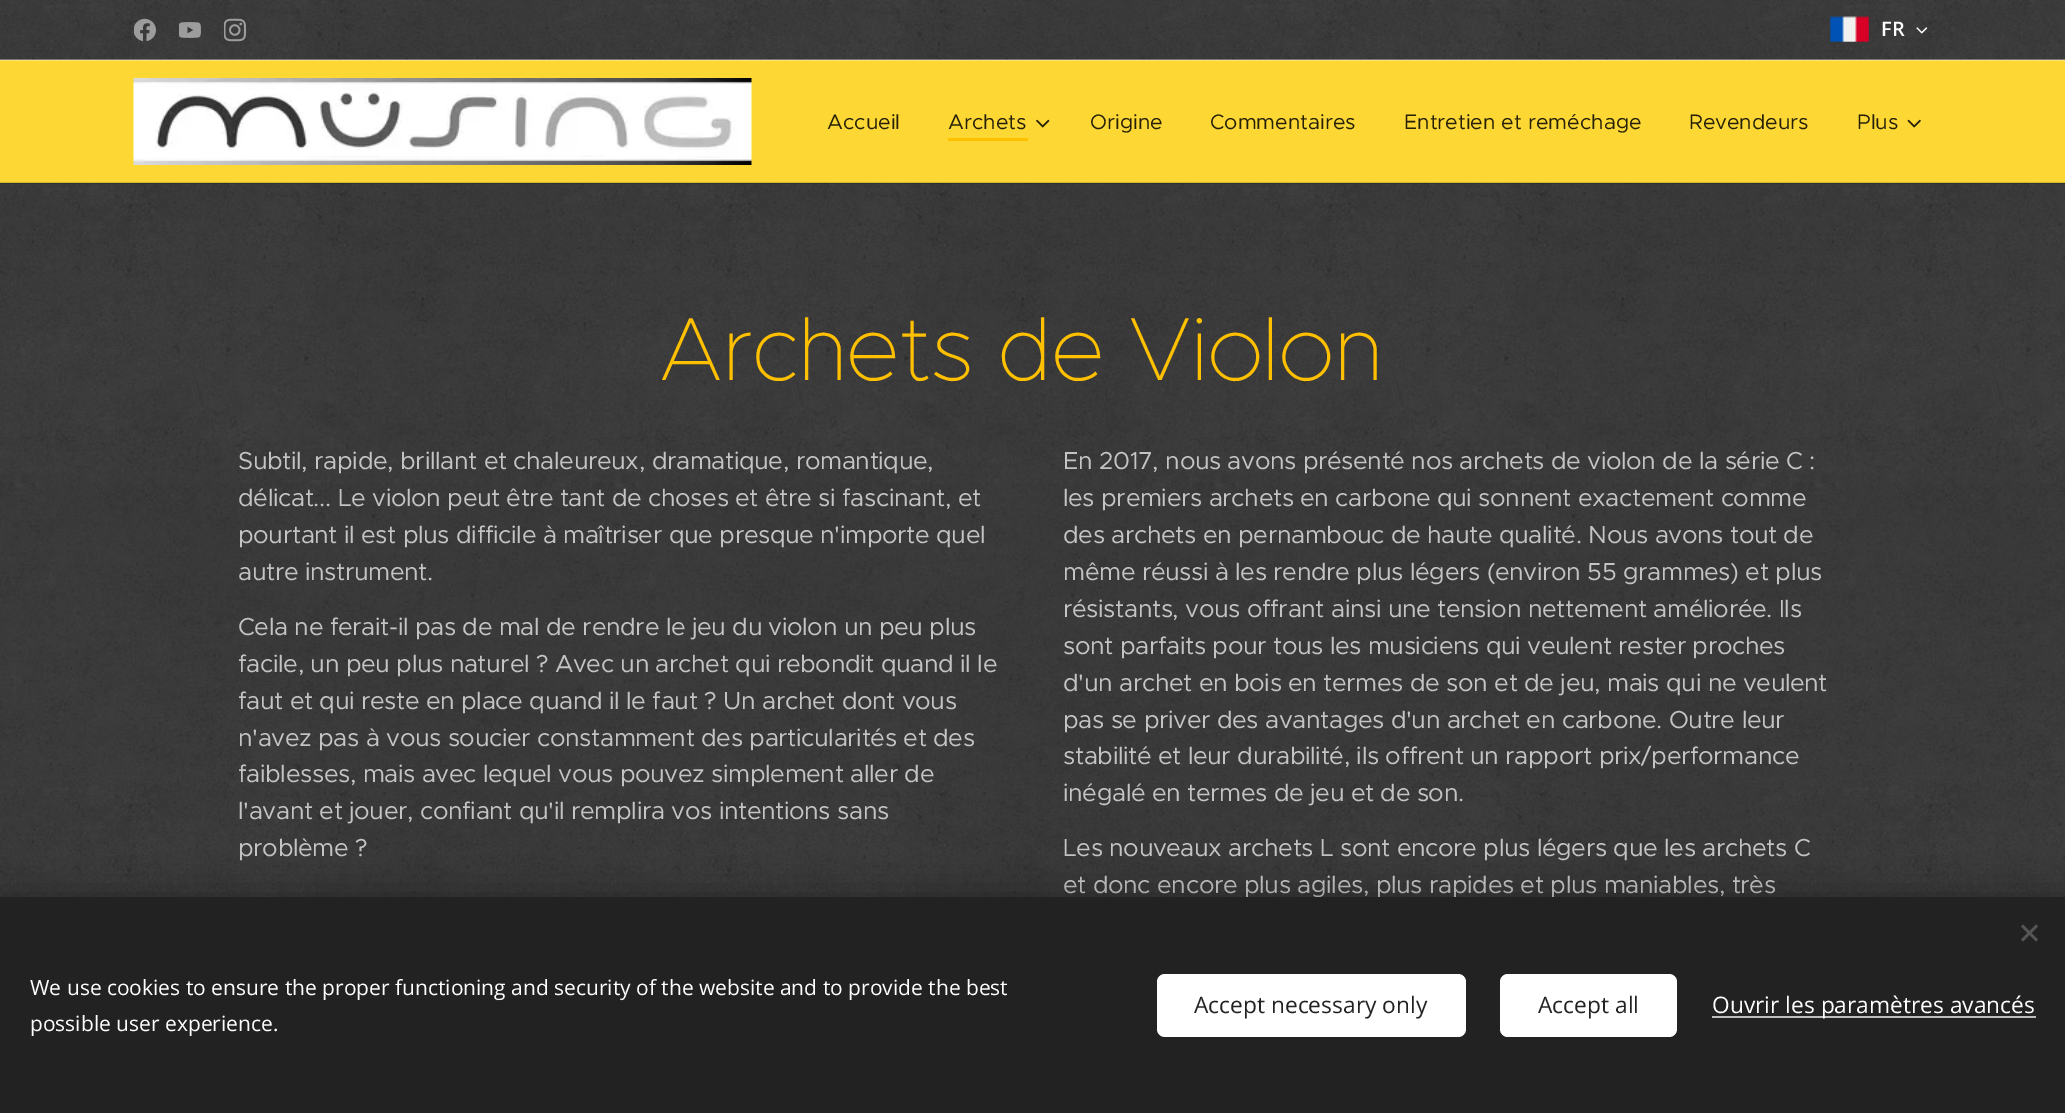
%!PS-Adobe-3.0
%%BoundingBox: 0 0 2065 1113
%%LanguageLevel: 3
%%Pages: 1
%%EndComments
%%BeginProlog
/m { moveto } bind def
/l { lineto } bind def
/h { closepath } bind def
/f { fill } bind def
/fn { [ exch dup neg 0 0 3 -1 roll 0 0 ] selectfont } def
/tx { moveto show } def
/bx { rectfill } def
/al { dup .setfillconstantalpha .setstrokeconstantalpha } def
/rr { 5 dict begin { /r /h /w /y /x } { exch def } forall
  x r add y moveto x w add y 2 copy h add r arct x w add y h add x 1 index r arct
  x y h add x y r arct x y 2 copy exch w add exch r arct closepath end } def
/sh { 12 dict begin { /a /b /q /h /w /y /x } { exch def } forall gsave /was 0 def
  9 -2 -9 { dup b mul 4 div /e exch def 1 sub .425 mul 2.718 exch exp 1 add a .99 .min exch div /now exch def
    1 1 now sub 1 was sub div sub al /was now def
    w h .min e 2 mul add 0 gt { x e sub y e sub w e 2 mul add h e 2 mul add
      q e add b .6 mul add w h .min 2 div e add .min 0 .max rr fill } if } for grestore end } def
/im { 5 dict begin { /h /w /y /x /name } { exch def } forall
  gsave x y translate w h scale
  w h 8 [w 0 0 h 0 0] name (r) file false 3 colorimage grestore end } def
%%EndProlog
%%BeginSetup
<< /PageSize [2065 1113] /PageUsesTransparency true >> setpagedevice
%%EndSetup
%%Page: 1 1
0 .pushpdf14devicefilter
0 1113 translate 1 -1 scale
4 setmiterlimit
1 setgray
0 0 2065 1113 bx
(image0.raw) 0 0 2065 60 im
(image1.raw) 134 18 22 24 im
(image2.raw) 179 22 22 16 im
(image3.raw) 224 18 22 24 im
(image4.raw) 1830 16 39 26 im
/OpenSans-SemiBold 20 fn
(FR) 1881 36 tx
(image5.raw) 1916 27 12 7 im
0.992 0.847 0.208 setrgbcolor
0 60 2065 123 bx
0.3 al
1 setgray
0 59 2065 2 bx
1 al
(image6.raw) 133 78 619 87 im
/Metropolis-Regular 21 fn
0.149 0.125 0.031 setrgbcolor
(Accueil) 827 129 tx
(Archets) 948 129 tx
1 0.753 0 setrgbcolor
948 138 80 3 bx
(image7.raw) 1036 119 14 9 im
0.149 0.125 0.031 setrgbcolor
(Origine) 1090 129 tx
(Commentaires) 1210 129 tx
(Entretien et reméchage) 1404 129 tx
(Revendeurs) 1689 129 tx
(Plus) 1857 129 tx
(image8.raw) 1907 119 14 9 im
(image9.raw) 0 183 2065 714 im
0.15 al
0 setgray
0 182 2065 2 bx
/Metropolis-Thin 89.75 fn
1 al
1 0.753 0 setrgbcolor
659 380 m -1 0 (Archets de Violon) ashow
/Metropolis-Regular 24.6 fn
0.769 setgray
238 469 m -0.37 0 (Subtil, rapide, brillant et chaleureux, dramatique, romantique,) ashow
238 506 m -0.37 0 (délicat... Le violon peut être tant de choses et être si fascinant, et) ashow
238 543 m -0.37 0 (pourtant il est plus difficile à maîtriser que presque n'importe quel) ashow
238 580 m -0.37 0 (autre instrument.) ashow
238 635 m -0.37 0 (Cela ne ferait-il pas de mal de rendre le jeu du violon un peu plus) ashow
238 672 m -0.37 0 (facile, un peu plus naturel ? Avec un archet qui rebondit quand il le) ashow
238 709 m -0.37 0 (faut et qui reste en place quand il le faut ? Un archet dont vous) ashow
238 746 m -0.37 0 (n'avez pas à vous soucier constamment des particularités et des) ashow
238 782 m -0.37 0 (faiblesses, mais avec lequel vous pouvez simplement aller de) ashow
238 819 m -0.37 0 (l'avant et jouer, confiant qu'il remplira vos intentions sans) ashow
238 856 m -0.37 0 (problème ?) ashow
1063 469 m -0.37 0 (En 2017, nous avons présenté nos archets de violon de la série C :) ashow
1063 506 m -0.37 0 (les premiers archets en carbone qui sonnent exactement comme) ashow
1063 543 m -0.37 0 (des archets en pernambouc de haute qualité. Nous avons tout de) ashow
1063 580 m -0.37 0 (même réussi à les rendre plus légers \(environ 55 grammes\) et plus) ashow
1063 617 m -0.37 0 (résistants, vous offrant ainsi une tension nettement améliorée. Ils) ashow
1063 654 m -0.37 0 (sont parfaits pour tous les musiciens qui veulent rester proches) ashow
1063 691 m -0.37 0 (d'un archet en bois en termes de son et de jeu, mais qui ne veulent) ashow
1063 728 m -0.37 0 (pas se priver des avantages d'un archet en carbone. Outre leur) ashow
1063 764 m -0.37 0 (stabilité et leur durabilité, ils offrent un rapport prix/performance) ashow
1063 801 m -0.37 0 (inégalé en termes de jeu et de son.) ashow
1063 856 m -0.37 0 (Les nouveaux archets L sont encore plus légers que les archets C) ashow
1063 893 m -0.37 0 (et donc encore plus agiles, plus rapides et plus maniables, très) ashow
0 setgray
0 897 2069 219 0 19 0.33 sh
0.133 setgray
0 897 2065 216 bx
0.333 setgray
2021 939.5 m 2036 924.5 l 2038 926.5 l 2023 941.5 l h f
2023 924.5 m 2038 939.5 l 2036 941.5 l 2021 926.5 l h f
/OpenSans-Regular 21 fn
1 setgray
(We use cookies to ensure the proper functioning and security of the website and to provide the best) 30 995 tx
(possible user experience.) 30 1031 tx
1157 974 309 63 8 rr f
/OpenSans-Regular 22.75 fn
0.133 setgray
(Accept necessary only) 1194 1013 tx
1 setgray
1500 974 177 63 8 rr f
0.133 setgray
(Accept all) 1538 1013 tx
0.741 setgray
1712 1016 324 2 bx
1 setgray
(Ouvrir les paramètres avancés) 1712 1013 tx
.poppdf14devicefilter showpage
%%EOF
